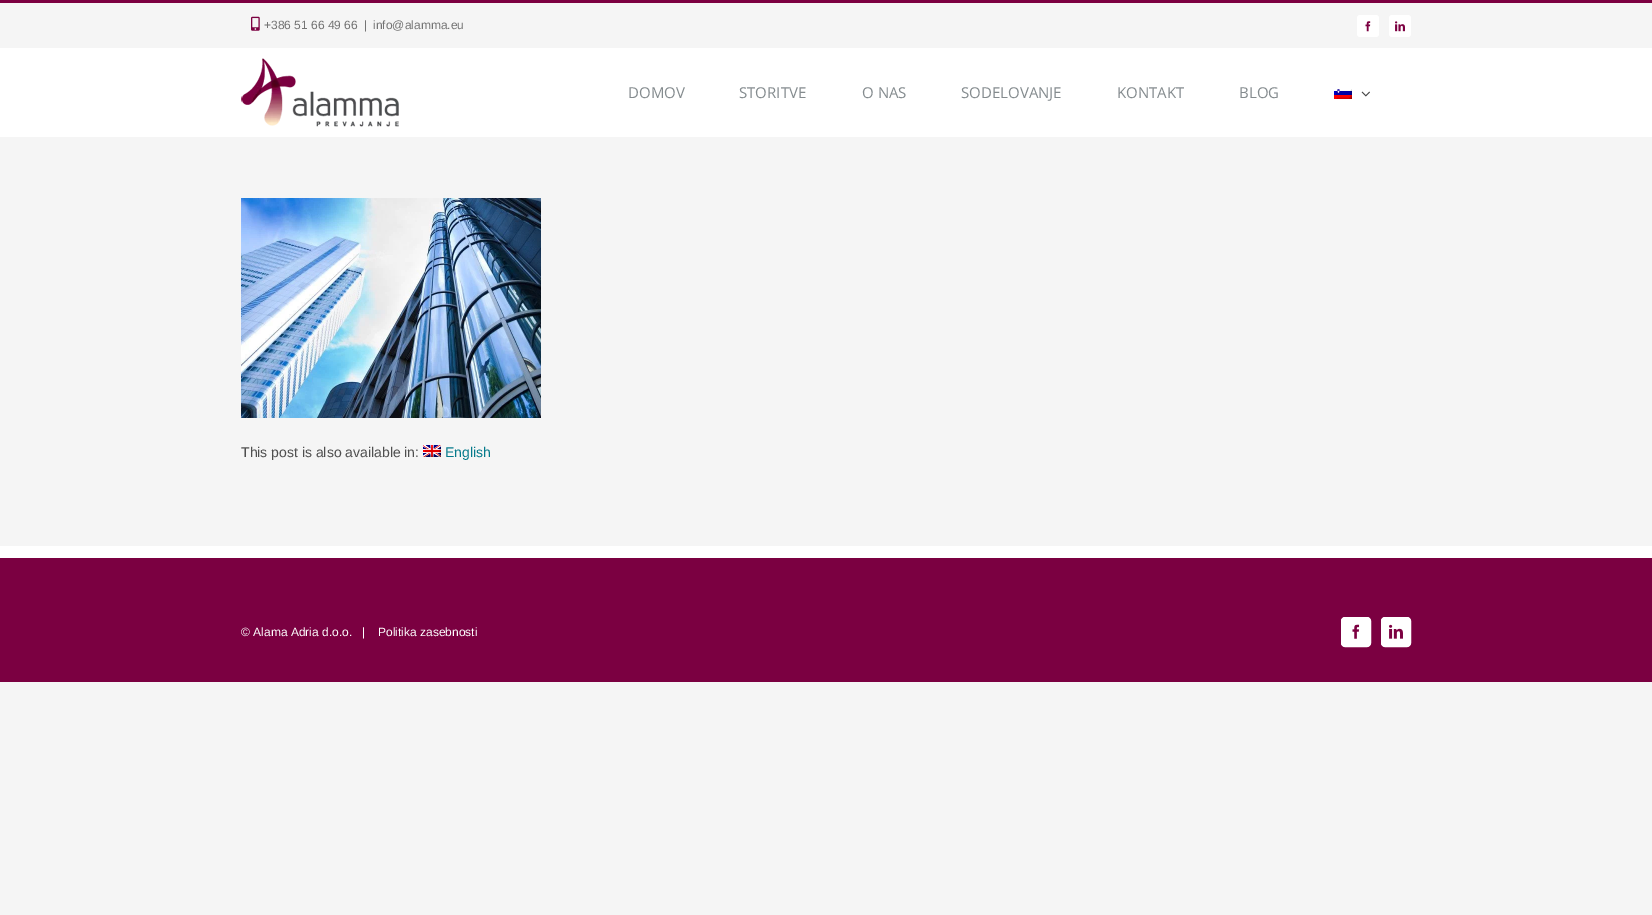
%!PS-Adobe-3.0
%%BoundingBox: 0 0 1652 915
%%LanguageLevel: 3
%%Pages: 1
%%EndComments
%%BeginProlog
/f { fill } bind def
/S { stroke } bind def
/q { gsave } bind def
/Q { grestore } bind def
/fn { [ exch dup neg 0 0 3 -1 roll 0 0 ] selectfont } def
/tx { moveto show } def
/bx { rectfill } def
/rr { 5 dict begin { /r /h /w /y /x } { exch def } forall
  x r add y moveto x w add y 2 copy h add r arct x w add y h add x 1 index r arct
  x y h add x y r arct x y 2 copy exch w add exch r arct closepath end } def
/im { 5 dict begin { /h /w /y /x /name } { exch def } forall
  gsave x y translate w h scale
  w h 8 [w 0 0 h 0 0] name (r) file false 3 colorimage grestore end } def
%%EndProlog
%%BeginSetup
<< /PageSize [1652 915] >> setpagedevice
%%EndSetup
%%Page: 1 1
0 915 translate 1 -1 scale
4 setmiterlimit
0.961 setgray
0 0 1652 915 bx
0.486 0 0.255 setrgbcolor
0 0 1652 3 bx
(image0.raw) 251 16 9 15 im
/LiberationSans-Regular 12 fn
0.455 setgray
(+386 51 66 49 66) 264 29 tx
(|) 364 29 tx
(info@alamma.eu) 373 29 tx
1 setgray
1357 15 22 22 3 rr f
(image1.raw) 1365 21 6 11 im
1389 15 22 22 3 rr f
(image2.raw) 1395 21 10 11 im
0 48 1652 89 bx
(image3.raw) 241 58 158 69 im
/OpenSans-Regular 15 fn
0.518 0.545 0.557 setrgbcolor
(DOMOV) 628 98 tx
(STORITVE) 739 98 tx
(O NAS) 862 98 tx
(SODELOVANJE) 961 98 tx
(KONTAKT) 1117 98 tx
(BLOG) 1239 98 tx
(image4.raw) 1334 89 18 10 im
(image5.raw) 1361 91 9 6 im
(image6.raw) 241 198 300 220 im
/LiberationSans-Regular 14 fn
0.31 setgray
(This post is also available in:) 241 457 tx
(image7.raw) 423 445 18 12 im
0.02 0.478 0.545 setrgbcolor
(English) 445 457 tx
0.482 0 0.255 setrgbcolor
0 558 1652 124 bx
1 setgray
0 546 1652 12 bx
/LiberationSans-Regular 12 fn
(© Alama Adria d.o.o.   |) 241 636 tx
(Politika zasebnosti) 378 636 tx
1341.5 617.5 29 29 3.5 rr q f Q
S
(image8.raw) 1352 624 8 15 im
1381.5 617.5 29 29 3.5 rr q f Q
S
(image9.raw) 1389 624 14 15 im
showpage
%%EOF
